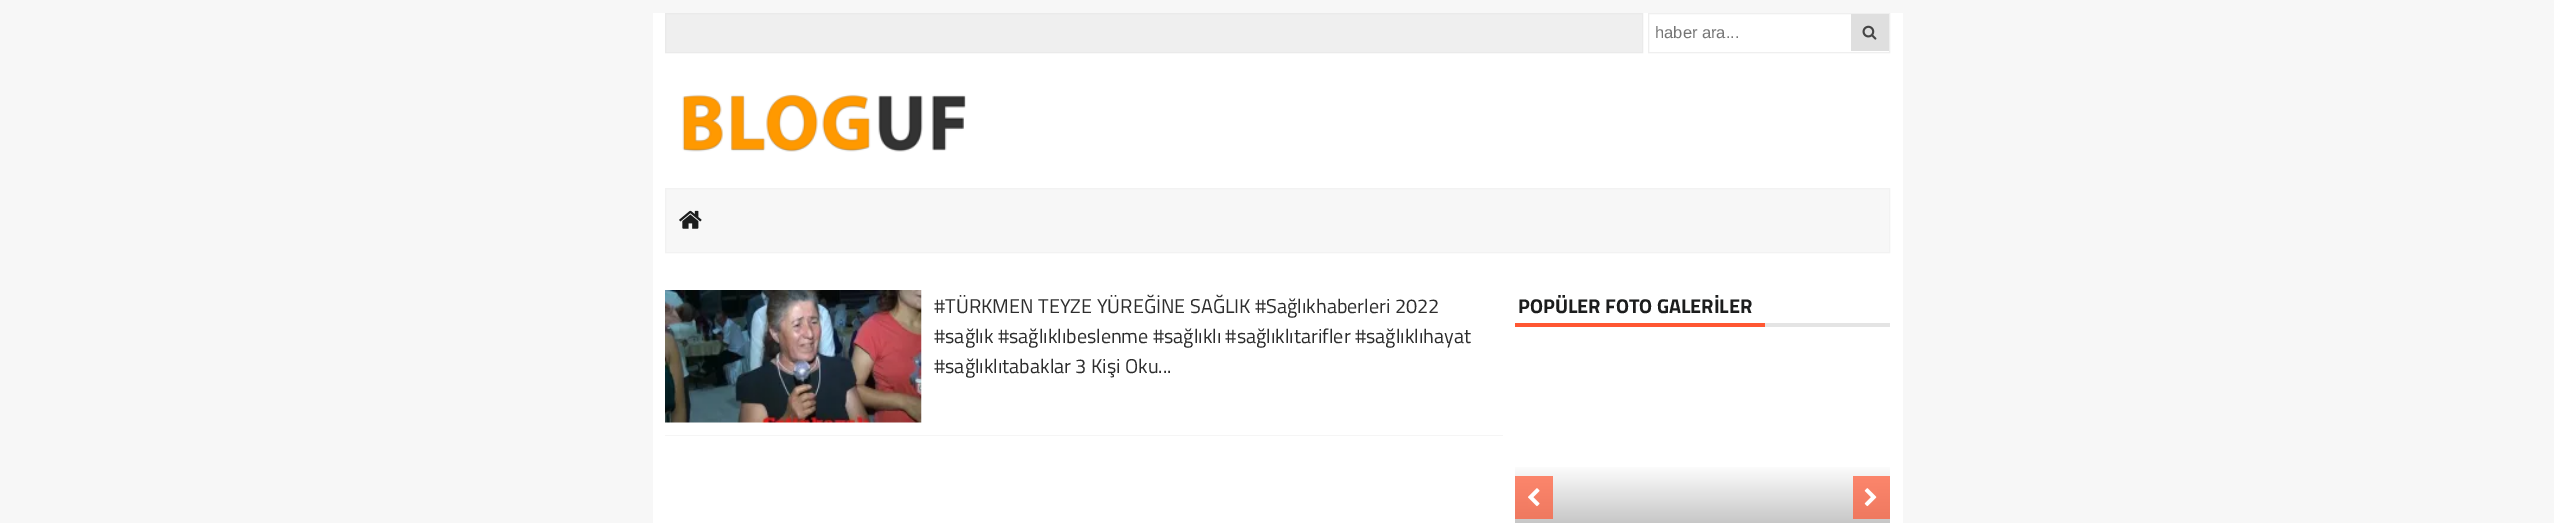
%!PS-Adobe-3.0
%%BoundingBox: 0 0 2554 523
%%LanguageLevel: 3
%%Pages: 1
%%EndComments
%%BeginProlog
/m { moveto } bind def
/l { lineto } bind def
/h { closepath } bind def
/f { fill } bind def
/S { stroke } bind def
/q { gsave } bind def
/Q { grestore } bind def
/fn { [ exch dup neg 0 0 3 -1 roll 0 0 ] selectfont } def
/tx { moveto show } def
/bx { rectfill } def
/im { 5 dict begin { /h /w /y /x /name } { exch def } forall
  gsave x y translate w h scale
  w h 8 [w 0 0 h 0 0] name (r) file false 3 colorimage grestore end } def
%%EndProlog
%%BeginSetup
<< /PageSize [2554 523] >> setpagedevice
%%EndSetup
%%Page: 1 1
0 523 translate 1 -1 scale
4 setmiterlimit
0.969 setgray
0 0 2554 523 bx
1 setgray
653 13 1250 510 bx
0.937 setgray
665.5 13.5 m 1642.5 13.5 l 1642.5 52.5 l 665.5 52.5 l h q f Q
0.918 setgray
S
0.937 setgray
1648.5 13.5 241 39 rectstroke
/LiberationSans-Regular 16.5 fn
0.459 setgray
(haber ara...) 1655 38 tx
0.875 setgray
1851 14 38 37 bx
(image0.raw) 1862 25 15 15 im
(image1.raw) 682 94 284 58 im
0.969 setgray
665.5 188.5 m 1889.5 188.5 l 1889.5 252.5 l 665.5 252.5 l h q f Q
0.949 setgray
S
(image2.raw) 679 210 23 19 im
0.961 setgray
665 435 838 1 bx
(image3.raw) 665 290 257 133 im
/TitilliumWeb-Regular 20 fn
0.176 setgray
(#TÜRKMEN TEYZE YÜREĞİNE SAĞLIK #Sağlıkhaberleri 2022) 934 313 tx
(#sağlık #sağlıklıbeslenme #sağlıklı #sağlıklıtarifler #sağlıklıhayat) 934 343 tx
(#sağlıklıtabaklar 3 Kişi Oku...) 934 373 tx
0.894 setgray
1765 323 125 4 bx
/TitilliumWeb-Bold 20 fn
0.11 0.114 0.114 setrgbcolor
(POPÜLER FOTO GALERİLER) 1518 313 tx
1 0.341 0.196 setrgbcolor
1515 323 250 4 bx
q 1515 467 m 1890 467 l 1890 523 l 1515 523 l h clip newpath
<< /ShadingType 2 /ColorSpace /DeviceRGB /Coords [1703 464 1703 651] /Extend [true true] /Function << /FunctionType 2 /Domain [0 1] /C0 [1 1 1] /C1 [0.302 0.302 0.302] /N 1 >> >> shfill Q
q 1515 476 m 1553 476 l 1553 519 l 1515 519 l h clip newpath
<< /ShadingType 2 /ColorSpace /DeviceRGB /Coords [1703 464 1703 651] /Extend [true true] /Function << /FunctionType 2 /Domain [0 1] /C0 [1 0.537 0.439] /C1 [0.792 0.329 0.227] /N 1 >> >> shfill Q
q 1853 476 m 1890 476 l 1890 519 l 1853 519 l h clip newpath
<< /ShadingType 2 /ColorSpace /DeviceRGB /Coords [1703 464 1703 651] /Extend [true true] /Function << /FunctionType 2 /Domain [0 1] /C0 [1 0.537 0.439] /C1 [0.792 0.329 0.227] /N 1 >> >> shfill Q
(image4.raw) 1528 488 12 19 im
(image5.raw) 1864 488 13 19 im
showpage
%%EOF
